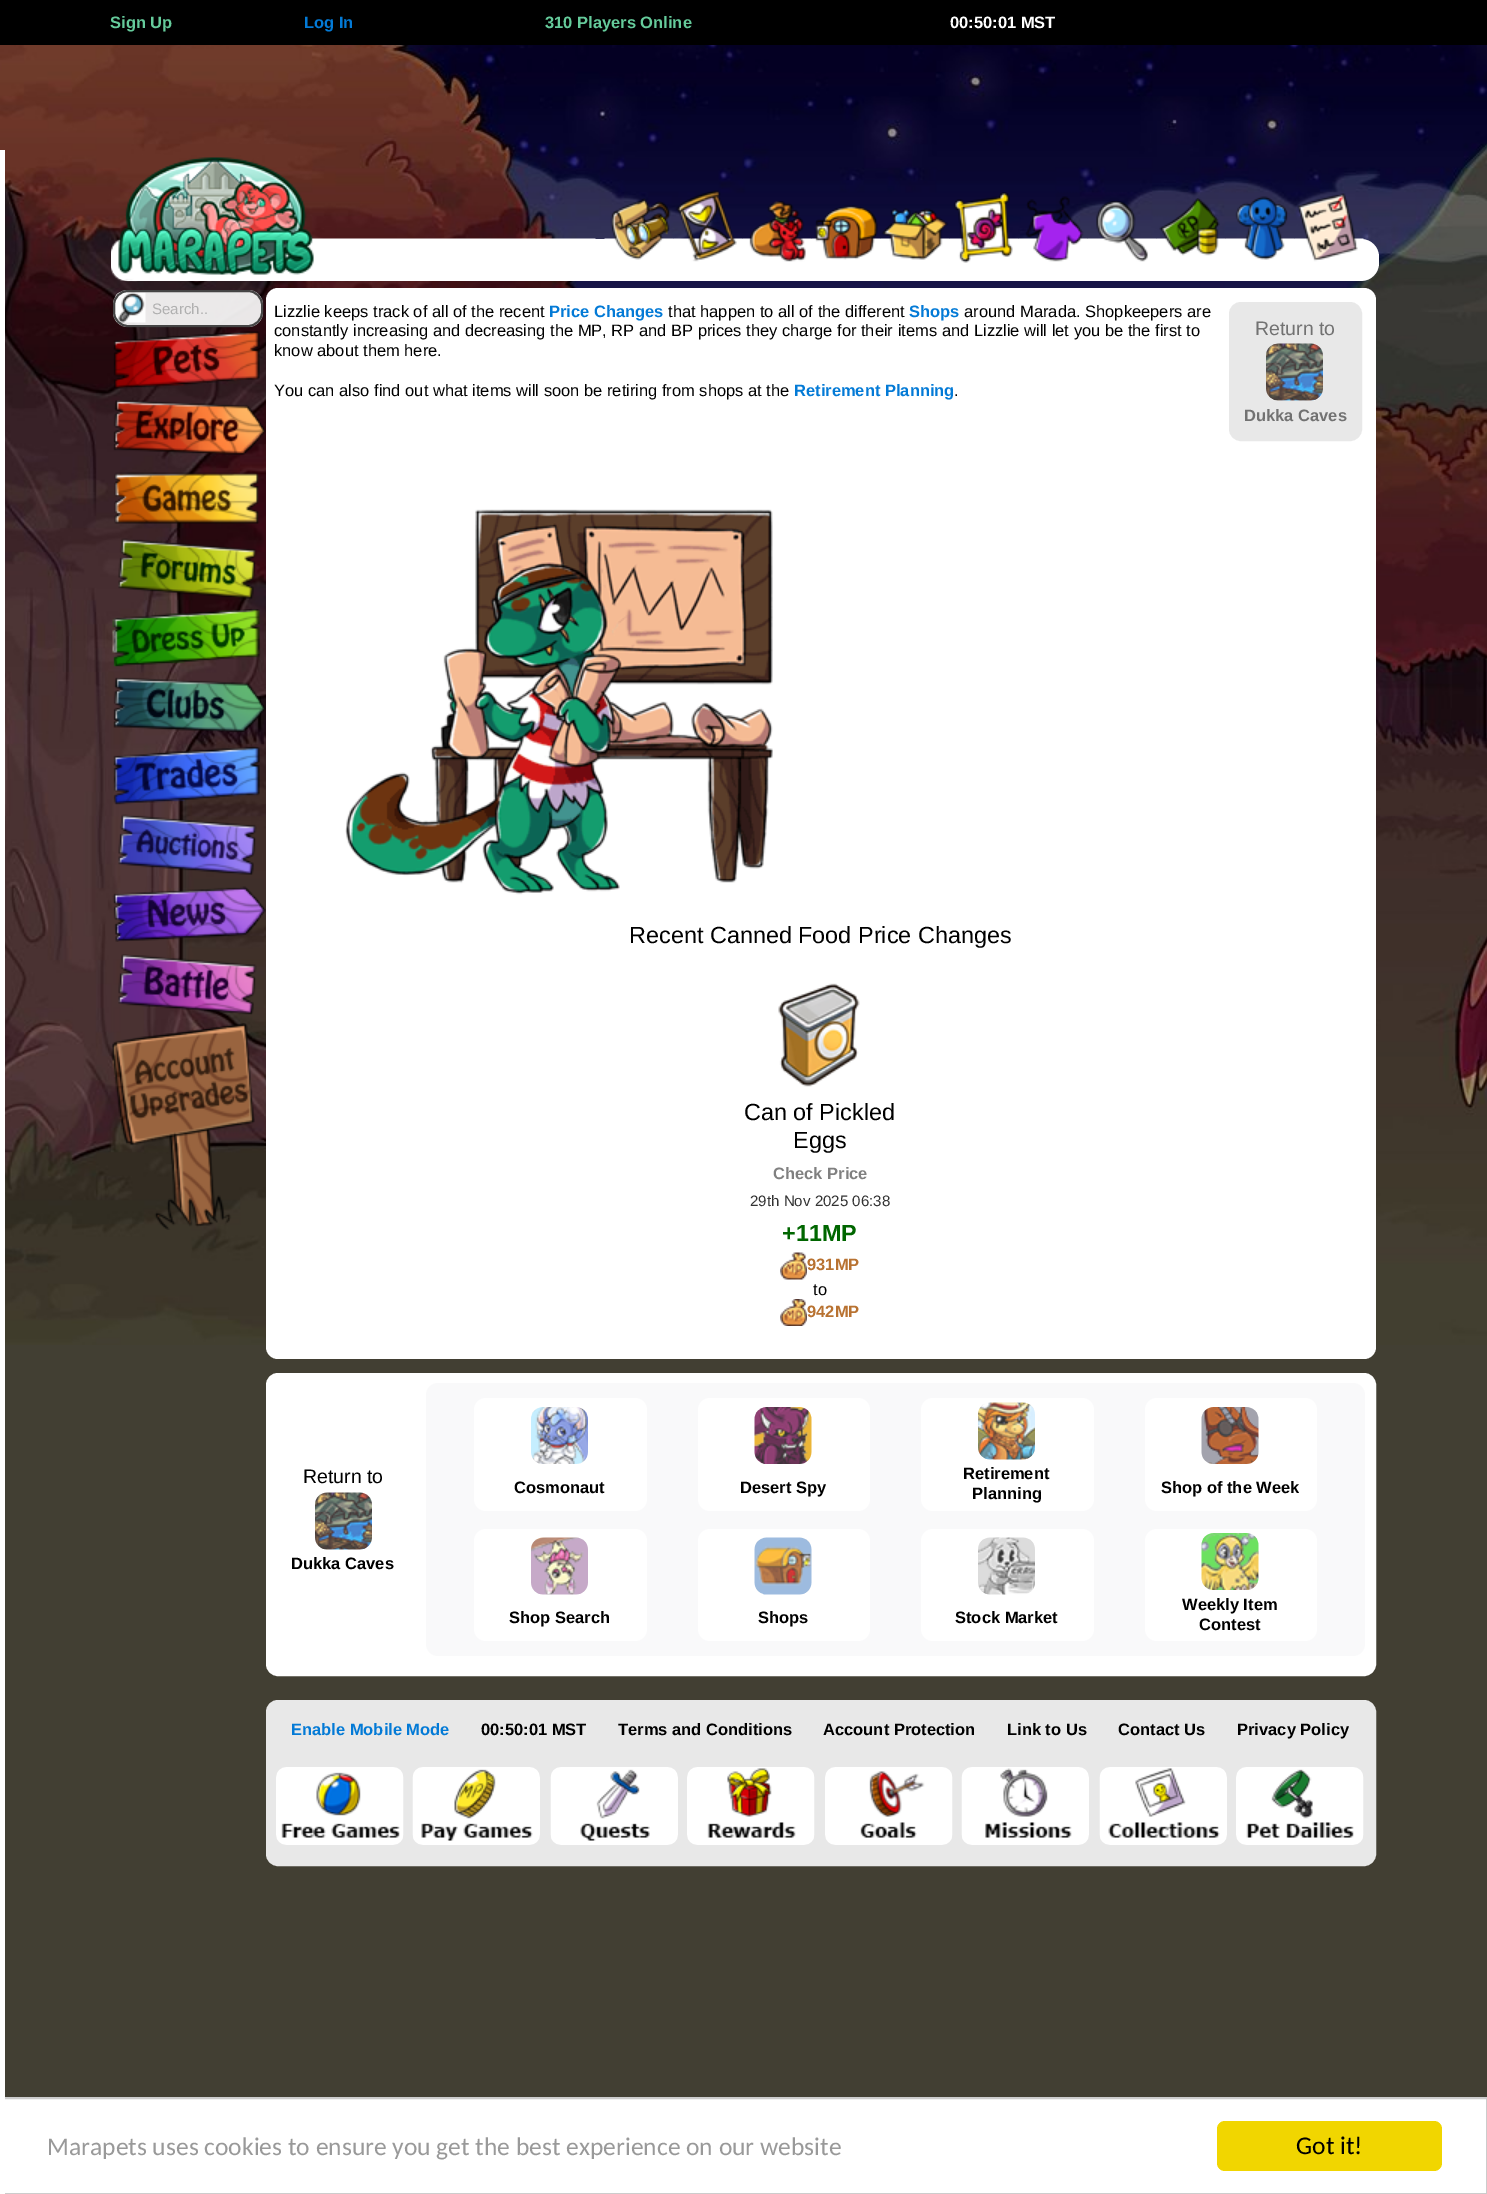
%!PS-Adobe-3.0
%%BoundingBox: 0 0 1487 2194
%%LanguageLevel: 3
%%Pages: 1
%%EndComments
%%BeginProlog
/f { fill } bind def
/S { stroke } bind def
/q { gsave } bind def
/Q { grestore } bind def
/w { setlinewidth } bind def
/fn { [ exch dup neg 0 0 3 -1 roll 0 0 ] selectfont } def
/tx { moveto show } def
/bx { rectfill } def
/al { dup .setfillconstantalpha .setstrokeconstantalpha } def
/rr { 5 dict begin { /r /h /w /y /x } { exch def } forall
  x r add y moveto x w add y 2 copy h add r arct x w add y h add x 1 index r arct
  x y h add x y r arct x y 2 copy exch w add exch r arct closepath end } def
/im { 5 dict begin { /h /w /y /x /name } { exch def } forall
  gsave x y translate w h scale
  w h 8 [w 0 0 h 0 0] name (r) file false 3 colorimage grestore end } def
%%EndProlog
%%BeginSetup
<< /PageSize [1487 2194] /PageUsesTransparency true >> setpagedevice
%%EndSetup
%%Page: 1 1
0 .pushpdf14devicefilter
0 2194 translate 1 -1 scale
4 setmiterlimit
0.259 0.247 0.2 setrgbcolor
0 0 1487 2194 bx
(image0.raw) 0 45 1487 1300 im
0 setgray
0 0 1487 45 bx
/LiberationSans-Bold 16.5 fn
0.396 0.796 0.608 setrgbcolor
(Sign Up) 110 28 tx
0.012 0.478 0.839 setrgbcolor
(Log In) 304 28 tx
0.396 0.796 0.608 setrgbcolor
(310 Players Online) 545 28 tx
1 setgray
(00:50:01 MST) 950 28 tx
5 2099 1481 94 bx
0.8 setgray
2 w
1 2098 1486 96 rectstroke
1 setgray
0 150 5 2044 bx
111 239 1268 42 18 rr f
(image1.raw) 111 157 485 125 im
(image2.raw) 604 198 70 62 im
(image3.raw) 673 190 70 72 im
(image4.raw) 742 201 70 61 im
(image5.raw) 811 205 70 55 im
(image6.raw) 880 208 70 52 im
(image7.raw) 949 192 70 71 im
(image8.raw) 1018 196 70 66 im
(image9.raw) 1087 201 70 61 im
(image10.raw) 1156 198 70 58 im
(image11.raw) 1225 196 70 64 im
(image12.raw) 1294 193 70 88 im
0.9 al
113 290 150 37 15 rr f
1 al
(image13.raw) 115 292 31 31 im
0.9 al
0.2 setgray
114 291 148 35 14 rr S
/LiberationSans-Regular 15.1 fn
1 al
0.69 setgray
(Search..) 152 314 tx
(image14.raw) 113 331 147 58 im
(image15.raw) 113 400 153 55 im
(image16.raw) 114 472 146 52 im
(image17.raw) 118 538 139 61 im
(image18.raw) 112 609 148 58 im
(image19.raw) 113 677 153 56 im
(image20.raw) 113 746 147 59 im
(image21.raw) 118 814 139 61 im
(image22.raw) 112 886 154 56 im
(image23.raw) 118 954 139 61 im
(image24.raw) 111 1023 144 207 im
1 setgray
266 288 1110 1071 12 rr f
/LiberationSans-Regular 16.5 fn
0 setgray
(Lizzlie keeps track of all of the recent) 274 317 tx
/LiberationSans-Bold 16.5 fn
0.012 0.478 0.839 setrgbcolor
(Price Changes) 549 317 tx
/LiberationSans-Regular 16.5 fn
0 setgray
(that happen to all of the different) 668 317 tx
/LiberationSans-Bold 16.5 fn
0.012 0.478 0.839 setrgbcolor
(Shops) 909 317 tx
/LiberationSans-Regular 16.5 fn
0 setgray
(around Marada. Shopkeepers are) 964 317 tx
(constantly increasing and decreasing the MP, RP and BP prices they charge for their items and Lizzlie will let you be the first to) 274 336 tx
0.91 setgray
1232 305 127 133 9 rr q f Q
6 w
S
/LiberationSans-Regular 19.5 fn
0.447 setgray
(Return to) 1255 335 tx
1 setgray
1266 344 57 57 12 rr f
(image25.raw) 1266 343 57 58 im
/LiberationSans-Bold 16.5 fn
0.447 setgray
(Dukka Caves) 1244 421 tx
/LiberationSans-Regular 16.5 fn
0 setgray
(know about them here.) 274 356 tx
(You can also find out what items will soon be retiring from shops at the) 274 396 tx
/LiberationSans-Bold 16.5 fn
0.012 0.478 0.839 setrgbcolor
(Retirement Planning) 794 396 tx
/LiberationSans-Regular 16.5 fn
0 setgray
(.) 954 396 tx
(image26.raw) 345 509 428 386 im
/LiberationSans-Regular 23.4 fn
(Recent Canned Food Price Changes) 629 943 tx
(image27.raw) 778 983 82 104 im
(Can of Pickled) 744 1120 tx
(Eggs) 793 1148 tx
/LiberationSans-Bold 16.5 fn
0.502 setgray
(Check Price) 773 1179 tx
/LiberationSans-Regular 15.1 fn
0.2 setgray
(29th Nov 2025 06:38) 750 1206 tx
/LiberationSans-Bold 23.4 fn
0 0.4 0 setrgbcolor
(+11MP) 782 1241 tx
(image28.raw) 780 1252 27 28 im
/LiberationSans-Bold 16.5 fn
0.722 0.447 0.192 setrgbcolor
(931MP) 807 1270 tx
/LiberationSans-Regular 16.5 fn
0 setgray
(to) 813 1295 tx
(image29.raw) 780 1299 27 27 im
/LiberationSans-Bold 16.5 fn
0.722 0.447 0.192 setrgbcolor
(942MP) 807 1317 tx
1 setgray
267.5 1374.5 1107 300 10.5 rr q f Q
3 w
S
/LiberationSans-Regular 19.5 fn
0 setgray
(Return to) 303 1483 tx
(image30.raw) 315 1492 57 58 im
/LiberationSans-Bold 16.5 fn
(Dukka Caves) 291 1569 tx
0.976 0.976 0.98 setrgbcolor
426 1383 939 273 12 rr f
1 setgray
474 1398 173 113 12 rr f
(image31.raw) 531 1407 57 57 im
0 setgray
(Cosmonaut) 514 1493 tx
1 setgray
698 1398 172 113 12 rr f
(image32.raw) 754 1407 58 57 im
0 setgray
(Desert Spy) 740 1493 tx
1 setgray
921 1398 173 113 12 rr f
(image33.raw) 978 1402 57 58 im
0 setgray
(Retirement) 963 1479 tx
(Planning) 972 1499 tx
1 setgray
1145 1398 172 113 12 rr f
(image34.raw) 1201 1407 58 57 im
0 setgray
(Shop of the Week) 1161 1493 tx
1 setgray
474 1529 173 112 12 rr f
(image35.raw) 531 1537 57 58 im
0 setgray
(Shop Search) 509 1623 tx
1 setgray
698 1529 172 112 12 rr f
(image36.raw) 754 1537 58 58 im
0 setgray
(Shops) 758 1623 tx
1 setgray
921 1529 173 112 12 rr f
(image37.raw) 978 1537 57 58 im
0 setgray
(Stock Market) 955 1623 tx
1 setgray
1145 1529 172 112 12 rr f
(image38.raw) 1201 1533 58 57 im
0 setgray
(Weekly Item) 1182 1610 tx
(Contest) 1199 1630 tx
0.91 setgray
269 1703 1104 160 9 rr q f Q
6 w
S
0.012 0.478 0.839 setrgbcolor
(Enable Mobile Mode) 291 1735 tx
0 setgray
(00:50:01 MST) 481 1735 tx
(Terms and Conditions) 618 1735 tx
(Account Protection) 823 1735 tx
(Link to Us) 1007 1735 tx
(Contact Us) 1118 1735 tx
(Privacy Policy) 1237 1735 tx
(image39.raw) 276 1767 128 78 im
(image40.raw) 412 1767 128 78 im
(image41.raw) 550 1767 128 78 im
(image42.raw) 687 1767 128 78 im
(image43.raw) 825 1767 128 78 im
(image44.raw) 961 1767 128 78 im
(image45.raw) 1099 1767 128 78 im
(image46.raw) 1236 1767 128 78 im
/Carlito-Regular 25.5 fn
0.6 setgray
(Marapets uses cookies to ensure you get the best experience on our website) 47 2155 tx
0.945 0.839 0 setrgbcolor
1217 2121 225 50 8 rr f
0 setgray
(Got it!) 1296 2154 tx
.poppdf14devicefilter showpage
%%EOF
